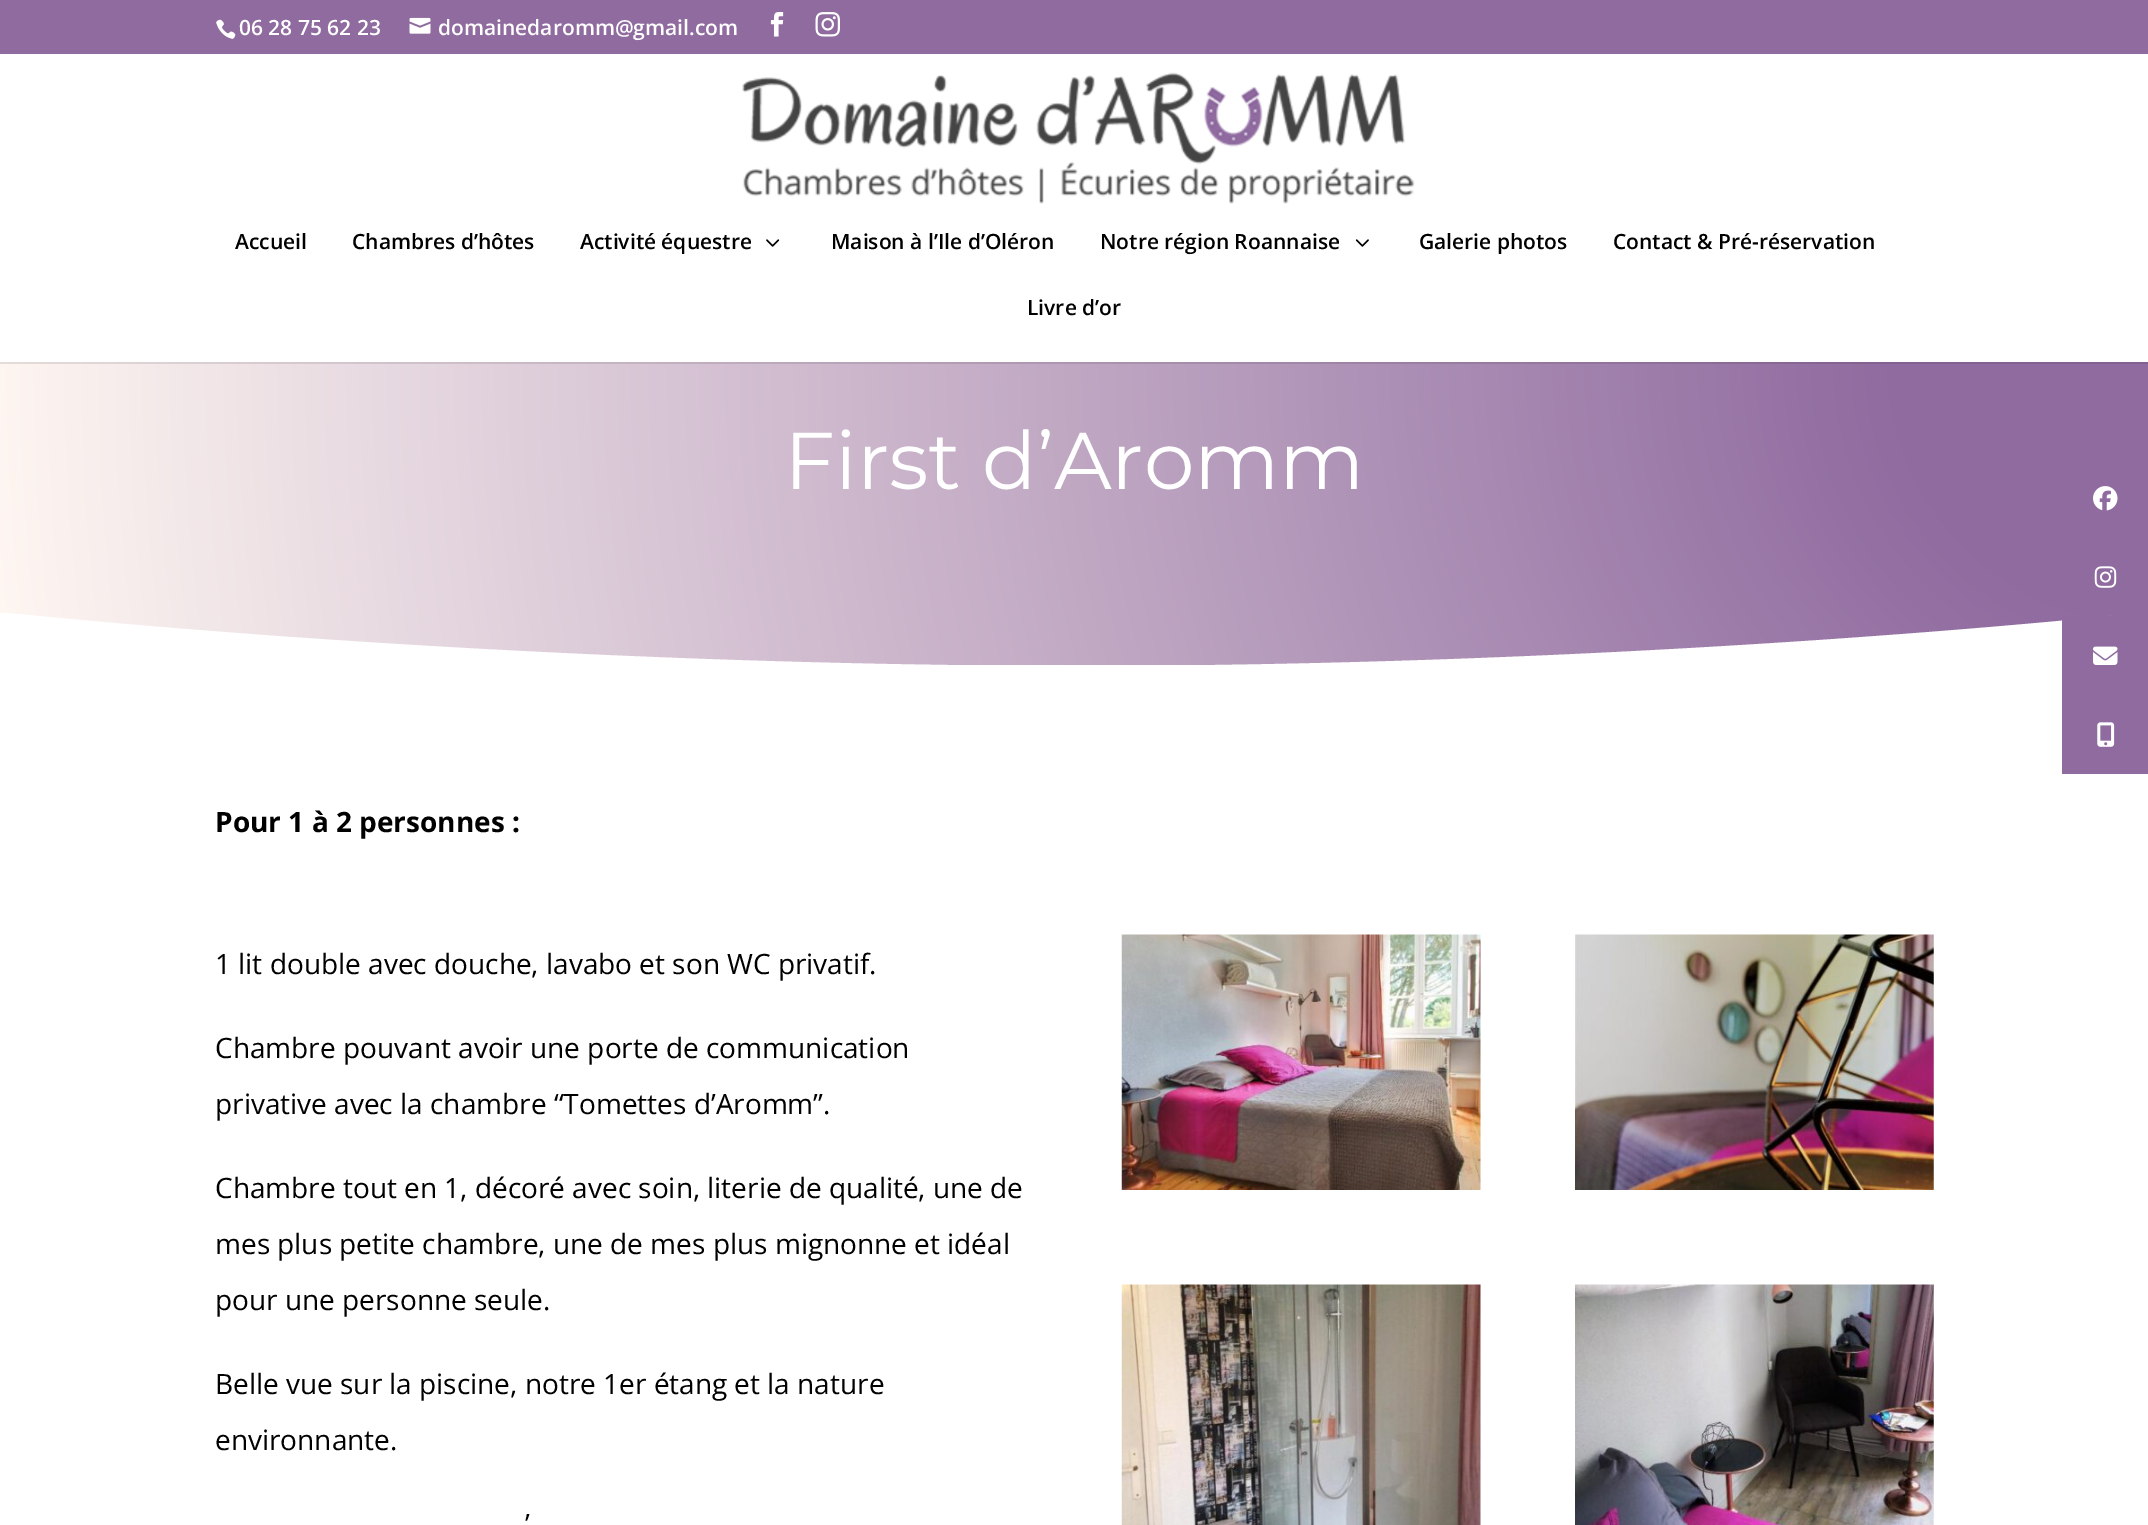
%!PS-Adobe-3.0
%%BoundingBox: 0 0 2148 1525
%%LanguageLevel: 3
%%Pages: 1
%%EndComments
%%BeginProlog
/m { moveto } bind def
/l { lineto } bind def
/c { curveto } bind def
/h { closepath } bind def
/f { fill } bind def
/q { gsave } bind def
/Q { grestore } bind def
/fn { [ exch dup neg 0 0 3 -1 roll 0 0 ] selectfont } def
/tx { moveto show } def
/bx { rectfill } def
/im { 5 dict begin { /h /w /y /x /name } { exch def } forall
  gsave x y translate w h scale
  w h 8 [w 0 0 h 0 0] name (r) file false 3 colorimage grestore end } def
%%EndProlog
%%BeginSetup
<< /PageSize [2148 1525] >> setpagedevice
%%EndSetup
%%Page: 1 1
0 1525 translate 1 -1 scale
4 setmiterlimit
1 setgray
0 0 2148 1525 bx
0.561 0.42 0.627 setrgbcolor
0 0 2148 54 bx
(image0.raw) 216 19 20 20 im
/OpenSans-SemiBold 21 fn
1 setgray
(06 28 75 62 23) 239 35 tx
(image1.raw) 409 17 22 17 im
(domainedaromm@gmail.com) 438 35 tx
(image2.raw) 770 12 14 25 im
(image3.raw) 815 12 25 25 im
(image4.raw) 742 72 673 132 im
0 setgray
(Accueil) 235 249 tx
(Chambres d’hôtes) 352 249 tx
(Activité équestre) 580 249 tx
(image5.raw) 766 239 14 8 im
(Maison à l’Ile d’Oléron) 831 249 tx
(Notre région Roannaise) 1100 249 tx
(image6.raw) 1355 239 14 8 im
(Galerie photos) 1419 249 tx
(Contact & Pré-réservation) 1613 249 tx
(Livre d’or) 1027 315 tx
q 0 364 m 2148 364 l 2148 665 l 0 665 l h clip newpath 2149 362 translate 2170 2170 scale
<< /ShadingType 3 /ColorSpace /DeviceRGB /Coords [0 0 0 0 0 1] /Extend [true true] /Function << /FunctionType 3 /Domain [0 1] /Functions [<< /FunctionType 2 /Domain [0 1] /C0 [0.565 0.42 0.627] /C1 [0.565 0.42 0.627] /N 1 >> << /FunctionType 2 /Domain [0 1] /C0 [0.565 0.42 0.627] /C1 [1 0.969 0.949] /N 1 >>] /Bounds [0.12] /Encode [0 1 0 1] >> >> shfill Q
q 0 362 m 2148 362 l 2148 364 l 0 364 l h clip newpath 2149 362 translate 2170 2170 scale
<< /ShadingType 3 /ColorSpace /DeviceRGB /Coords [0 0 0 0 0 1] /Extend [true true] /Function << /FunctionType 3 /Domain [0 1] /Functions [<< /FunctionType 2 /Domain [0 1] /C0 [0.51 0.376 0.565] /C1 [0.51 0.376 0.565] /N 1 >> << /FunctionType 2 /Domain [0 1] /C0 [0.51 0.376 0.565] /C1 [0.902 0.871 0.855] /N 1 >>] /Bounds [0.12] /Encode [0 1 0 1] >> >> shfill Q
/Montserrat-Regular 80.5 fn
1 setgray
(First d’Aromm) 784 489 tx
q
0 613 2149 54 rectclip
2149 666 m 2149 612 l 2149 612 1668 666 1074 666 c 481 665 0 612 0 612 c 0 666 l h f
Q
/OpenSans-Bold 28 fn
0 setgray
(Pour 1 à 2 personnes :) 215 832 tx
/OpenSans-Regular 28 fn
(1 lit double avec douche, lavabo et son WC privatif.) 215 974 tx
(Chambre pouvant avoir une porte de communication) 215 1058 tx
(privative avec la chambre “Tomettes d’Aromm”.) 215 1114 tx
(Chambre tout en 1, décoré avec soin, literie de qualité, une de) 215 1198 tx
(mes plus petite chambre, une de mes plus mignonne et idéal) 215 1254 tx
(pour une personne seule.) 215 1310 tx
(Belle vue sur la piscine, notre 1er étang et la nature) 215 1394 tx
(environnante.) 215 1450 tx
(’) 525 1534 tx
(image7.raw) 1121 934 360 256 im
(image8.raw) 1575 934 359 256 im
(image9.raw) 1121 1284 360 241 im
(image10.raw) 1575 1284 359 241 im
(image11.raw) 2093 486 25 25 im
0.561 0.42 0.627 setrgbcolor
2111 613 37 3 bx
(image12.raw) 2094 566 23 22 im
2062 616 86 158 bx
(image13.raw) 2093 646 25 19 im
(image14.raw) 2097 722 18 25 im
showpage
%%EOF
